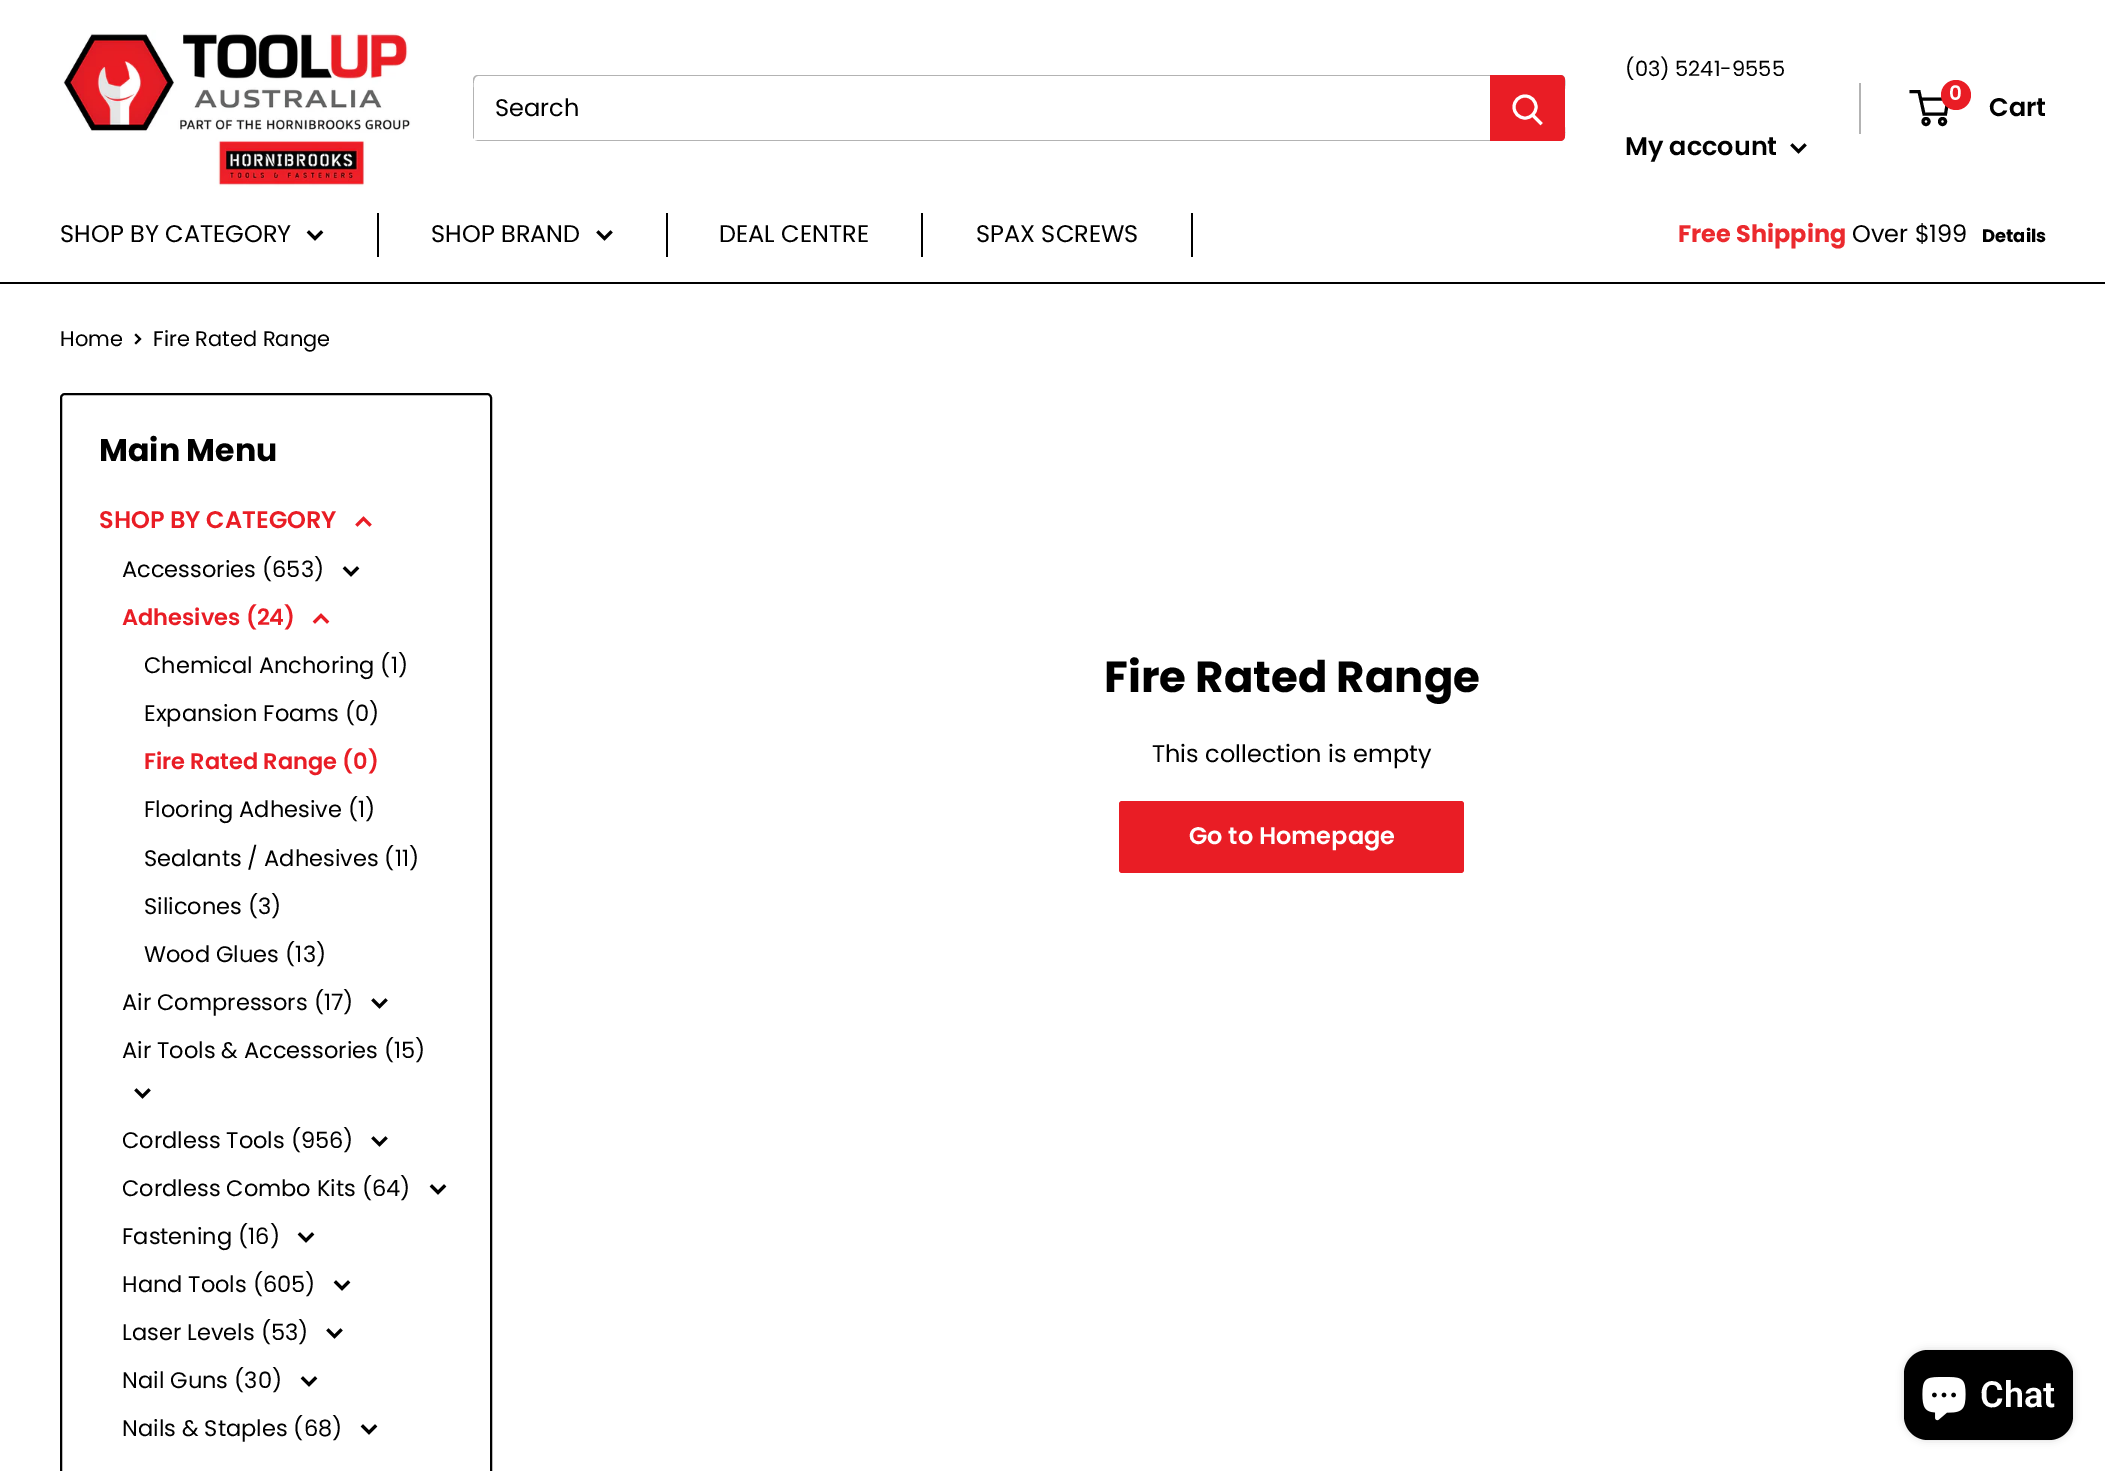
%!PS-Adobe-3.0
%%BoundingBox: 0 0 2105 1471
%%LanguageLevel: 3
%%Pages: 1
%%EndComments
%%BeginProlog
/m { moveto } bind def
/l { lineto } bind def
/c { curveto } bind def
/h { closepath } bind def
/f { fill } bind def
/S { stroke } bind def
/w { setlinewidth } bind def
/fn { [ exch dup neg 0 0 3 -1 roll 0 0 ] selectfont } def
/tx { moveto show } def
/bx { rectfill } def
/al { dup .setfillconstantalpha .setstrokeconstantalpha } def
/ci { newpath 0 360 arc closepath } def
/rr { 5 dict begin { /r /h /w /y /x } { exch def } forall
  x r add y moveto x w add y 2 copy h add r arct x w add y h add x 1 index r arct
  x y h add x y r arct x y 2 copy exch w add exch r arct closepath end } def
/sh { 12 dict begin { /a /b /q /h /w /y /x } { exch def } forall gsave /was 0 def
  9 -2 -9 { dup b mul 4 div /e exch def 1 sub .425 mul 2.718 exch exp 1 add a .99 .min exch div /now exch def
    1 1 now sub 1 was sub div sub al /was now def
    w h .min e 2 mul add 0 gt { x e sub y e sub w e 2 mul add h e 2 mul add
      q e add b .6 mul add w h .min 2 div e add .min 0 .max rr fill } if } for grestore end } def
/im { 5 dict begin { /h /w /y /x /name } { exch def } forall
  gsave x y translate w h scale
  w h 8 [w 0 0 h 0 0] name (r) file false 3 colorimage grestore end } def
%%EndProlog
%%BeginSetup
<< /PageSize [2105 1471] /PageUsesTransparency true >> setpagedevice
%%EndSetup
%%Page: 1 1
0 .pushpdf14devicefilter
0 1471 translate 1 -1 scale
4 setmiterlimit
1 setgray
0 0 2105 1471 bx
(image0.raw) 63 30 348 157 im
0.702 setgray
475 140 m 478 141 l 1560 141 l 1567 141 1565 130 1565 127 c 1565 89 l 1565 86 1567 77 1562 75 c 1563 78 l 1563 136 l 1563 137 1561 139 1560 140 c 1558 140 l h f
478 76 m 1562 76 l 1564 77 l 1563 76 1562 75 1560 75 c 478 75 l 475 75 473 77 473 80 c 473 136 l 473 137 473 138 474 139 c 474 90 l 474 90 472 76 478 76 c h f
/Poppins-Regular 24 fn
0 setgray
(Search) 495 116 tx
0.914 0.114 0.145 setrgbcolor
1490 75 m 1560 75 l 1563 75 1565 77 1565 80 c 1565 136 l 1565 139 1563 141 1560 141 c 1490 141 l h f
1 setgray
3 w
2 setlinecap
1540.5 123 m 1533 115.5 l S
0 setlinecap
1525 107 11 ci S
/Poppins-Regular 21 fn
0 setgray
(\(03\) 5241-9555) 1625 76 tx
0.702 setgray
1859 83 2 51 bx
/Poppins-SemiBold 25.5 fn
0 setgray
(My account) 1625 155 tx
2 setlinecap
1804.5 145.5 m 1798.5 151.5 l 1792.5 145.5 l S
0 setlinecap
1926 121.5 3 ci S
1942.5 121.5 3 ci S
1920.5 99 m 1948 99 l 1945.5 114 l 1924 114 l 1919 91.5 l 1909.5 91.5 l S
0.914 0.114 0.145 setrgbcolor
1956 95 15 ci f
/Poppins-SemiBold 20 fn
1 setgray
(0) 1949 100 tx
/Poppins-SemiBold 25.5 fn
0 setgray
(Cart) 1989 116 tx
0 282 2105 2 bx
377 213 2 44 bx
/Poppins-Regular 24 fn
(SHOP BY CATEGORY) 60 242 tx
2 setlinecap
321 232.5 m 315 238.5 l 309 232.5 l S
666 213 2 44 bx
(SHOP BRAND) 431 242 tx
610.5 232.5 m 604.5 238.5 l 598.5 232.5 l S
921 213 2 44 bx
(DEAL CENTRE) 719 242 tx
1191 213 2 44 bx
(SPAX SCREWS) 976 242 tx
/Poppins-Bold 24 fn
0.922 0.165 0.18 setrgbcolor
(Free Shipping) 1678 242 tx
/Poppins-Regular 24 fn
0 setgray
(Over $199) 1852 242 tx
/Poppins-Bold 18 fn
(Details) 1982 242 tx
/Poppins-Regular 21 fn
(Home) 60 346 tx
2 w
136 335 m 140 339 l 136 343 l S
(Fire Rated Range) 153 346 tx
0 setlinecap
61 394 430 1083 4 rr S
/Poppins-Bold 31.5 fn
(Main Menu) 99 461 tx
/Poppins-SemiBold 24 fn
0.914 0.114 0.145 setrgbcolor
(SHOP BY CATEGORY) 99 528 tx
3 w
2 setlinecap
357.5 524.5 m 363.5 518.5 l 369.5 524.5 l S
/Poppins-Regular 22.5 fn
0 setgray
(Accessories \(653\)) 122 577 tx
357 568.5 m 351 574.5 l 345 568.5 l S
/Poppins-SemiBold 22.5 fn
0.914 0.114 0.145 setrgbcolor
(Adhesives \(24\)) 122 625 tx
315 621.5 m 321 615.5 l 327 621.5 l S
/Poppins-Regular 22.5 fn
0 setgray
(Chemical Anchoring \(1\)) 144 673 tx
(Expansion Foams \(0\)) 144 721 tx
/Poppins-SemiBold 22.5 fn
0.914 0.114 0.145 setrgbcolor
(Fire Rated Range \(0\)) 144 769 tx
/Poppins-Regular 22.5 fn
0 setgray
(Flooring Adhesive \(1\)) 144 817 tx
(Sealants / Adhesives \(11\)) 144 866 tx
(Silicones \(3\)) 144 914 tx
(Wood Glues \(13\)) 144 962 tx
(Air Compressors \(17\)) 122 1010 tx
385.5 1000.5 m 379.5 1006.5 l 373.5 1000.5 l S
(Air Tools & Accessories \(15\)) 122 1058 tx
148.5 1090.5 m 142.5 1096.5 l 136.5 1090.5 l S
(Cordless Tools \(956\)) 122 1148 tx
385.5 1138.5 m 379.5 1144.5 l 373.5 1138.5 l S
(Cordless Combo Kits \(64\)) 122 1196 tx
444 1186.5 m 438 1192.5 l 432 1186.5 l S
(Fastening \(16\)) 122 1244 tx
312 1234.5 m 306 1240.5 l 300 1234.5 l 348 1282.5 m 342 1288.5 l 336 1282.5 l S
(Hand Tools \(605\)) 122 1292 tx
(Laser Levels \(53\)) 122 1340 tx
340.5 1330.5 m 334.5 1336.5 l 328.5 1330.5 l 315 1378.5 m 309 1384.5 l 303 1378.5 l S
(Nail Guns \(30\)) 122 1388 tx
(Nails & Staples \(68\)) 122 1436 tx
375 1426.5 m 369 1432.5 l 363 1426.5 l S
/Poppins-Bold 43.5 fn
(Fire Rated Range) 1104 692 tx
/Poppins-Regular 24 fn
(This collection is empty) 1152 762 tx
0.914 0.114 0.145 setrgbcolor
1119 801 345 72 3 rr f
/Poppins-SemiBold 24 fn
1 setgray
(Go to Homepage) 1189 844 tx
0 setgray
1904 1350 169 90 24 4 0.15 sh
1904 1350 169 90 24 rr f
(image1.raw) 1922 1377 44 44 im
/Roboto-SemiBold 36 fn
1 setgray
(Chat) 1980 1407 tx
.poppdf14devicefilter showpage
%%EOF
